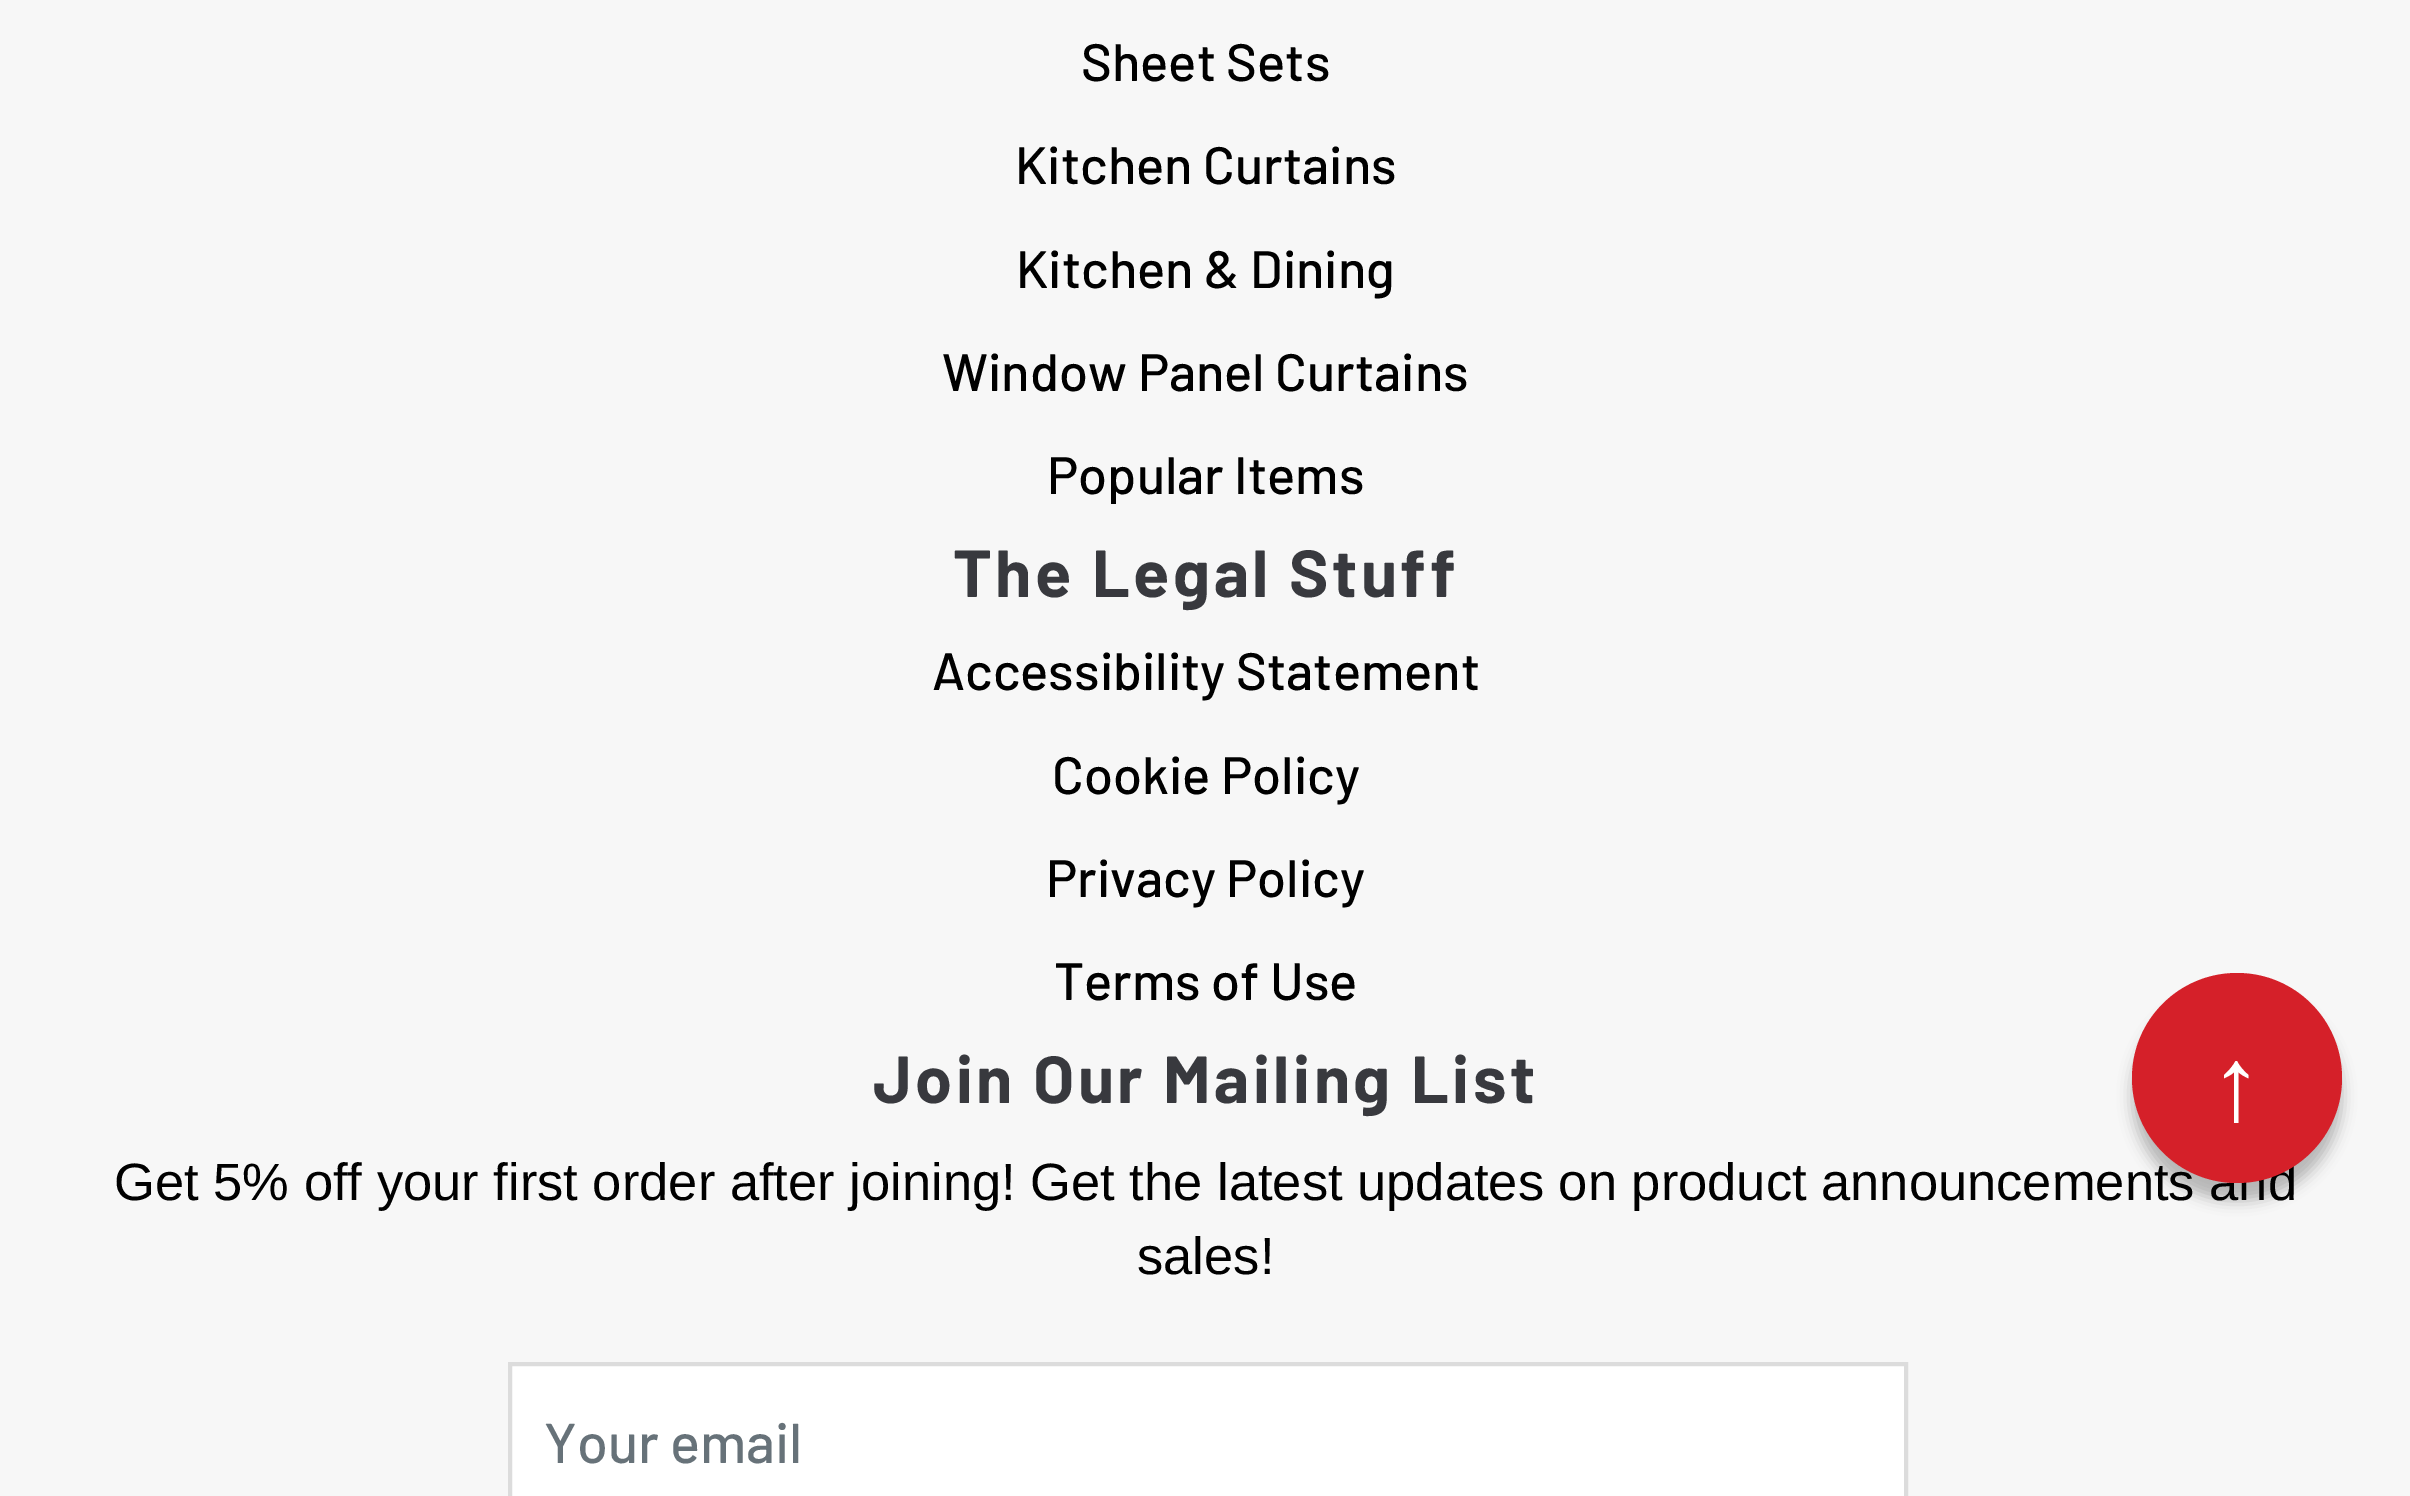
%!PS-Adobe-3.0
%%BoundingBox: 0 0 2410 1496
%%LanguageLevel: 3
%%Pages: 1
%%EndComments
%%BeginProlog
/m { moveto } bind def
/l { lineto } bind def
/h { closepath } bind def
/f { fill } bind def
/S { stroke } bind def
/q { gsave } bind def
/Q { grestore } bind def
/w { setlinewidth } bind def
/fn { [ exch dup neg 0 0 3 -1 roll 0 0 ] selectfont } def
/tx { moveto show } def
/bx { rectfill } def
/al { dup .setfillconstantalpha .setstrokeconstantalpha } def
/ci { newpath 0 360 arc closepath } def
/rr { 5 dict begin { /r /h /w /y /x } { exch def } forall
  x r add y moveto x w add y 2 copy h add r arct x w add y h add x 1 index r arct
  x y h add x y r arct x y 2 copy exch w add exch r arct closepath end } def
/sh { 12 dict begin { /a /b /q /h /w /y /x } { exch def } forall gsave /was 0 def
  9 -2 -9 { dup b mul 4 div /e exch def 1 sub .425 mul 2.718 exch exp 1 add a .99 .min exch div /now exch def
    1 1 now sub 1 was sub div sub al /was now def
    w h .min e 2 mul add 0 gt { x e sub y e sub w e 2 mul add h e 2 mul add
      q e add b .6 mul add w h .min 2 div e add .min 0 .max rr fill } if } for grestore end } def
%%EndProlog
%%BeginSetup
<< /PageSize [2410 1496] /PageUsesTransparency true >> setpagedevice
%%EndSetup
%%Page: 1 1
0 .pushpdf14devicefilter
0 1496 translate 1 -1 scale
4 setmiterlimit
0.969 setgray
0 0 2410 1496 bx
/Barlow-Medium 52.5 fn
0 setgray
(Sheet Sets) 1081 81 tx
(Kitchen Curtains) 1015 184 tx
(Kitchen & Dining) 1016 288 tx
(Window Panel Curtains) 942 391 tx
(Popular Items) 1047 494 tx
/Barlow-Bold 66.5 fn
0.22 0.224 0.243 setrgbcolor
953 597 m 3.5 0 (The Legal Stuff) ashow
/Barlow-Medium 52.5 fn
0 setgray
(Accessibility Statement) 932 690 tx
(Cookie Policy) 1052 794 tx
(Privacy Policy) 1046 897 tx
(Terms of Use) 1054 1000 tx
/Barlow-Bold 66.5 fn
0.22 0.224 0.243 setrgbcolor
873 1103 m 3.5 0 (Join Our Mailing List) ashow
/LiberationSans-Regular 52.5 fn
0 setgray
(Get 5% off your first order after joining! Get the latest updates on product announcements and) 114 1200 tx
(sales!) 1137 1274 tx
1 setgray
510 1364 m 1906 1364 l 1906 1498 l 510 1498 l h q f Q
0.863 setgray
4 w
S
/Barlow-Medium 56 fn
0.404 0.447 0.475 setrgbcolor
(Your email) 544 1463 tx
0 setgray
2132 991 210 210 105 7 0.26 sh
0.835 0.125 0.161 setrgbcolor
2237 1078 105 ci f
/LiberationSans-Regular 105 fn
1 setgray
(↑) 2210 1120 tx
.poppdf14devicefilter showpage
%%EOF
